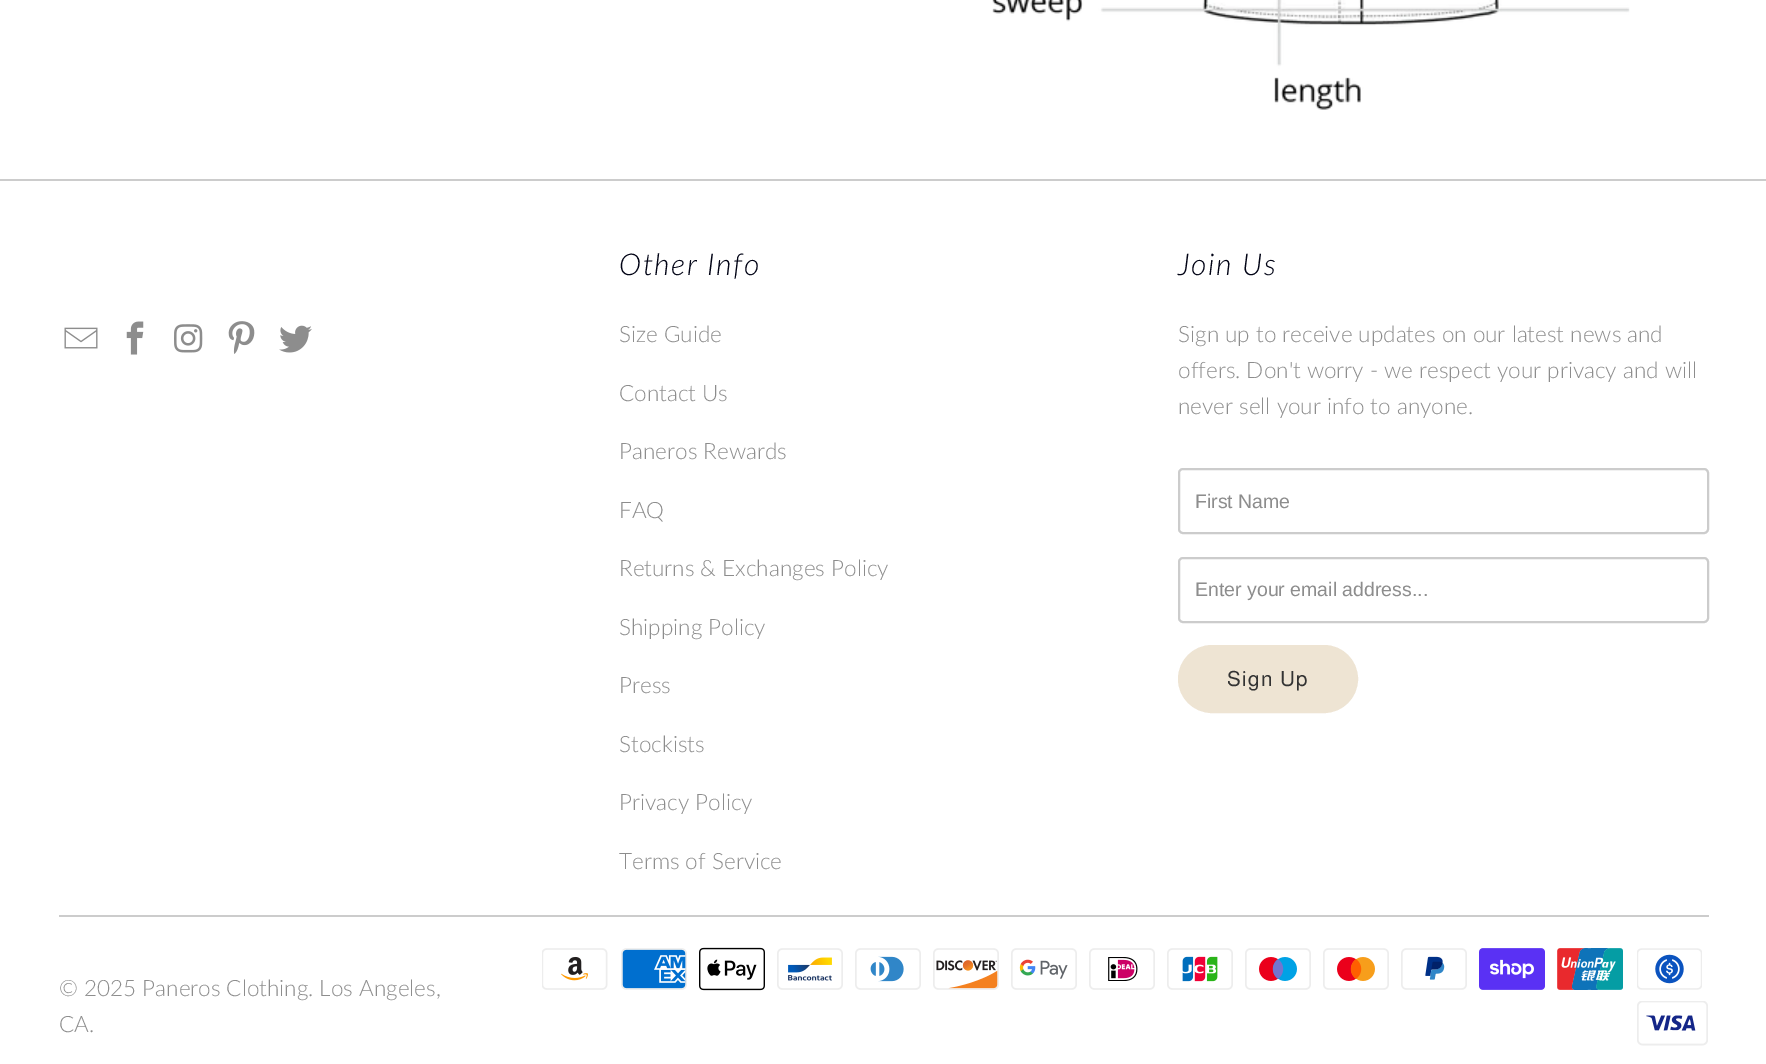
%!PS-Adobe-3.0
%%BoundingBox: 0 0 1766 1064
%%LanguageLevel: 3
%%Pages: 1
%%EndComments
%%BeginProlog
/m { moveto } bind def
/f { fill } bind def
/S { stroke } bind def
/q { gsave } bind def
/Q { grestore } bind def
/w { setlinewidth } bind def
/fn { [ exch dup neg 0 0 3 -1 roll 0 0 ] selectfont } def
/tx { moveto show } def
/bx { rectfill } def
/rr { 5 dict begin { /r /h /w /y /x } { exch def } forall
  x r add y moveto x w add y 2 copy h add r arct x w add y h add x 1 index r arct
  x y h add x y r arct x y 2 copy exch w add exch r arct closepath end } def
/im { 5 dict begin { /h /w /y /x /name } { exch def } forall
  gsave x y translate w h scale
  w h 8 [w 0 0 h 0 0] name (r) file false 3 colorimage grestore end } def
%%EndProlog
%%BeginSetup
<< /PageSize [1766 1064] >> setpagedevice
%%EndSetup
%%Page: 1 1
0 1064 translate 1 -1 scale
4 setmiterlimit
1 setgray
0 0 1766 1064 bx
(image0.raw) 992 0 638 110 im
0.8 setgray
0 179 1766 2 bx
(image1.raw) 64 327 34 22 im
(image2.raw) 126 321 18 34 im
(image3.raw) 174 324 29 29 im
(image4.raw) 228 321 27 33 im
(image5.raw) 279 325 33 28 im
/Lato-LightItalic 30 fn
0.004 0.012 0.082 setrgbcolor
619 275 m 1.5 0 (Other Info) ashow
/Lato-Light 22.5 fn
0.553 setgray
(Size Guide) 619 342 tx
(Contact Us) 619 401 tx
(Paneros Rewards) 619 459 tx
(FAQ) 619 518 tx
(Returns & Exchanges Policy) 619 576 tx
(Shipping Policy) 619 635 tx
(Press) 619 693 tx
(Stockists) 619 752 tx
(Privacy Policy) 619 810 tx
(Terms of Service) 619 869 tx
/Lato-LightItalic 30 fn
0.004 0.012 0.082 setrgbcolor
1178 275 m 1.5 0 (Join Us) ashow
/Lato-Light 22.5 fn
0.553 setgray
(Sign up to receive updates on our latest news and) 1178 342 tx
(offers. Don't worry - we respect your privacy and will) 1178 378 tx
(never sell your info to anyone.) 1178 414 tx
0.8 setgray
2 w
1179 469 529 64 4 rr S
/LiberationSans-Regular 19.5 fn
0.553 setgray
(First Name) 1195 508 tx
0.8 setgray
1179 558 529 64 4 rr S
0.553 setgray
(Enter your email address...) 1195 596 tx
0.933 0.894 0.827 setrgbcolor
1179 646 178 66 33 rr q f Q
S
/Almarai-Regular 21 fn
0.2 setgray
1227 686 m 1.5 0 (Sign Up) ashow
0.8 setgray
59 915 1650 2 bx
/Lato-Light 22.5 fn
0.553 setgray
(© 2025 Paneros Clothing) 59 996 tx
(. Los Angeles,) 308 996 tx
(CA.) 59 1032 tx
(image6.raw) 542 948 66 42 im
(image7.raw) 621 948 66 42 im
(image8.raw) 699 947 66 44 im
(image9.raw) 777 948 66 42 im
(image10.raw) 855 948 66 42 im
(image11.raw) 933 948 66 42 im
(image12.raw) 1011 948 66 42 im
(image13.raw) 1089 948 66 42 im
(image14.raw) 1167 948 66 42 im
(image15.raw) 1245 948 66 42 im
(image16.raw) 1323 948 66 42 im
(image17.raw) 1401 948 66 42 im
(image18.raw) 1479 948 66 42 im
(image19.raw) 1557 948 66 42 im
(image20.raw) 1637 948 65 42 im
(image21.raw) 1637 1001 71 45 im
showpage
%%EOF
